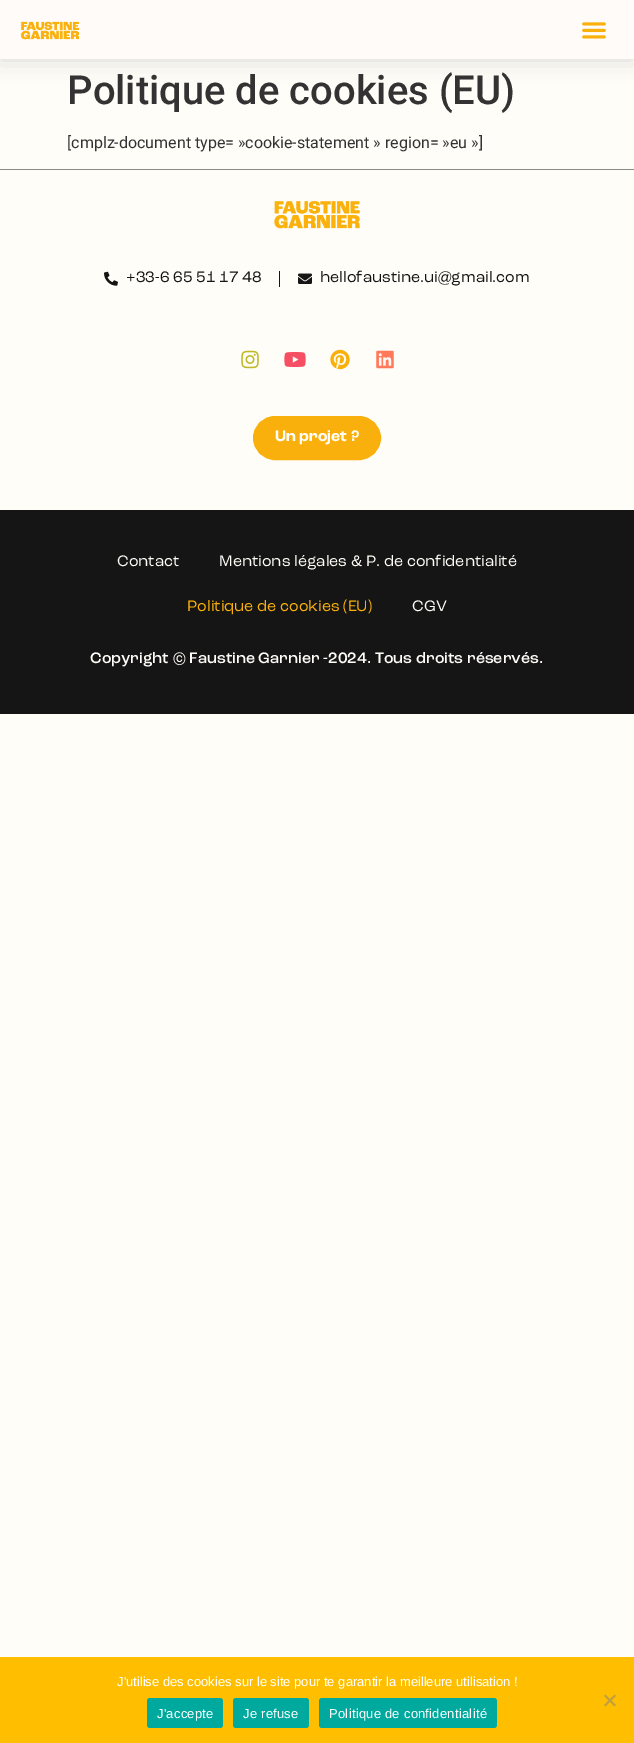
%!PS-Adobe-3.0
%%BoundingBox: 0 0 634 1743
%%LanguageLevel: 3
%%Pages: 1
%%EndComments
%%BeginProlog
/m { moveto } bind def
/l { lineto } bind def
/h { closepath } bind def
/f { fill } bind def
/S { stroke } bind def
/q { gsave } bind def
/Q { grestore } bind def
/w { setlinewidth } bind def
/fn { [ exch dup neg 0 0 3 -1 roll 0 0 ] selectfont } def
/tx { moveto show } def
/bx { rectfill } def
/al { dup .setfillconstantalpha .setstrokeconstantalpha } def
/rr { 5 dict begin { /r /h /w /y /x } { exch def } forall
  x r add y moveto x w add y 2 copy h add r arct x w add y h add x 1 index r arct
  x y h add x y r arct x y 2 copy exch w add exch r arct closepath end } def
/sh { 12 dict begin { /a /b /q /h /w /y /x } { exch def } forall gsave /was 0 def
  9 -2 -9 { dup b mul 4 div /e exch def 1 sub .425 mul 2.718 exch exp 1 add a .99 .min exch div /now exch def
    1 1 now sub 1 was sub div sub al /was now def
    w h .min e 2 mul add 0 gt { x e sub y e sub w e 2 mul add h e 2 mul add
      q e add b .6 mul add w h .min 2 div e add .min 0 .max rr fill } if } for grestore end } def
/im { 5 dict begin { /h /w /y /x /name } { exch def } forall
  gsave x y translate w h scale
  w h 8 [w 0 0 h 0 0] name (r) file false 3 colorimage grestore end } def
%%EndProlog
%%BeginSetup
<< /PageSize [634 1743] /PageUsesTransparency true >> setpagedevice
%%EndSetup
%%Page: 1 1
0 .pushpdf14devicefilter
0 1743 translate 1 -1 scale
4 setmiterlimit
1 0.992 0.973 setrgbcolor
0 0 634 1743 bx
0 setgray
0 0 634 59 0 12 0.15 sh
1 0.984 0.973 setrgbcolor
0 0 634 59 bx
(image0.raw) 20 21 60 19 im
(image1.raw) 582 22 24 17 im
/Roboto-Medium 40 fn
0.2 setgray
(Politique de cookies \(EU\)) 67 104 tx
/Roboto-Regular 16 fn
([cmplz-document type= »cookie-statement » region= »eu »]) 67 148 tx
0.541 0.541 0.529 setrgbcolor
0 169 634 1 bx
(image2.raw) 274 200 86 29 im
(image3.raw) 104 271 14 15 im
/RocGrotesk-Regular 16 fn
0.082 setgray
(+33-6 65 51 17 48) 126 282 tx
279 271 1 16 bx
(image4.raw) 298 273 14 11 im
(hellofaustine.ui@gmail.com) 320 282 tx
(image5.raw) 241 350 18 19 im
(image6.raw) 284 352 22 15 im
(image7.raw) 330 349 20 21 im
(image8.raw) 376 350 18 19 im
0.98 0.69 0.047 setrgbcolor
254 417 126 42 21 rr q f Q
2 w
S
/RocGrotesk-Bold 16 fn
1 0.992 0.973 setrgbcolor
(Un projet ?) 275 441 tx
0.082 setgray
0 510 634 204 bx
/RocGrotesk-Regular 16 fn
1 0.992 0.973 setrgbcolor
(Contact) 117 566 tx
(Mentions légales & P. de confidentialité) 219 566 tx
0.98 0.69 0.047 setrgbcolor
(Politique de cookies \(EU\)) 187 611 tx
1 0.992 0.973 setrgbcolor
(CGV) 412 611 tx
/RocGrotesk-Medium 16 fn
(Copyright © Faustine Garnier -2024. Tous droits réservés.) 90 663 tx
1 0.749 0 setrgbcolor
0 1657 634 86 bx
/LiberationSans-Regular 13 fn
1 setgray
(J'utilise des cookies sur le site pour te garantir la meilleure utilisation !) 117 1686 tx
0.753 0.627 0.251 setrgbcolor
614.5 1694.5 m 616 1696 l 605.5 1706.5 l 604 1705 l h f
604 1696 m 605.5 1694.5 l 616 1705 l 614.5 1706.5 l h f
0 0.663 0.616 setrgbcolor
147 1698 76 30 3 rr f
1 setgray
157 1718 m 0.25 0 (J'accepte) ashow
0 0.663 0.616 setrgbcolor
233 1698 76 30 3 rr f
1 setgray
243 1718 m 0.25 0 (Je refuse) ashow
0 0.663 0.616 setrgbcolor
319 1698 178 30 3 rr f
1 setgray
329 1718 m 0.25 0 (Politique de confidentialité) ashow
.poppdf14devicefilter showpage
%%EOF
